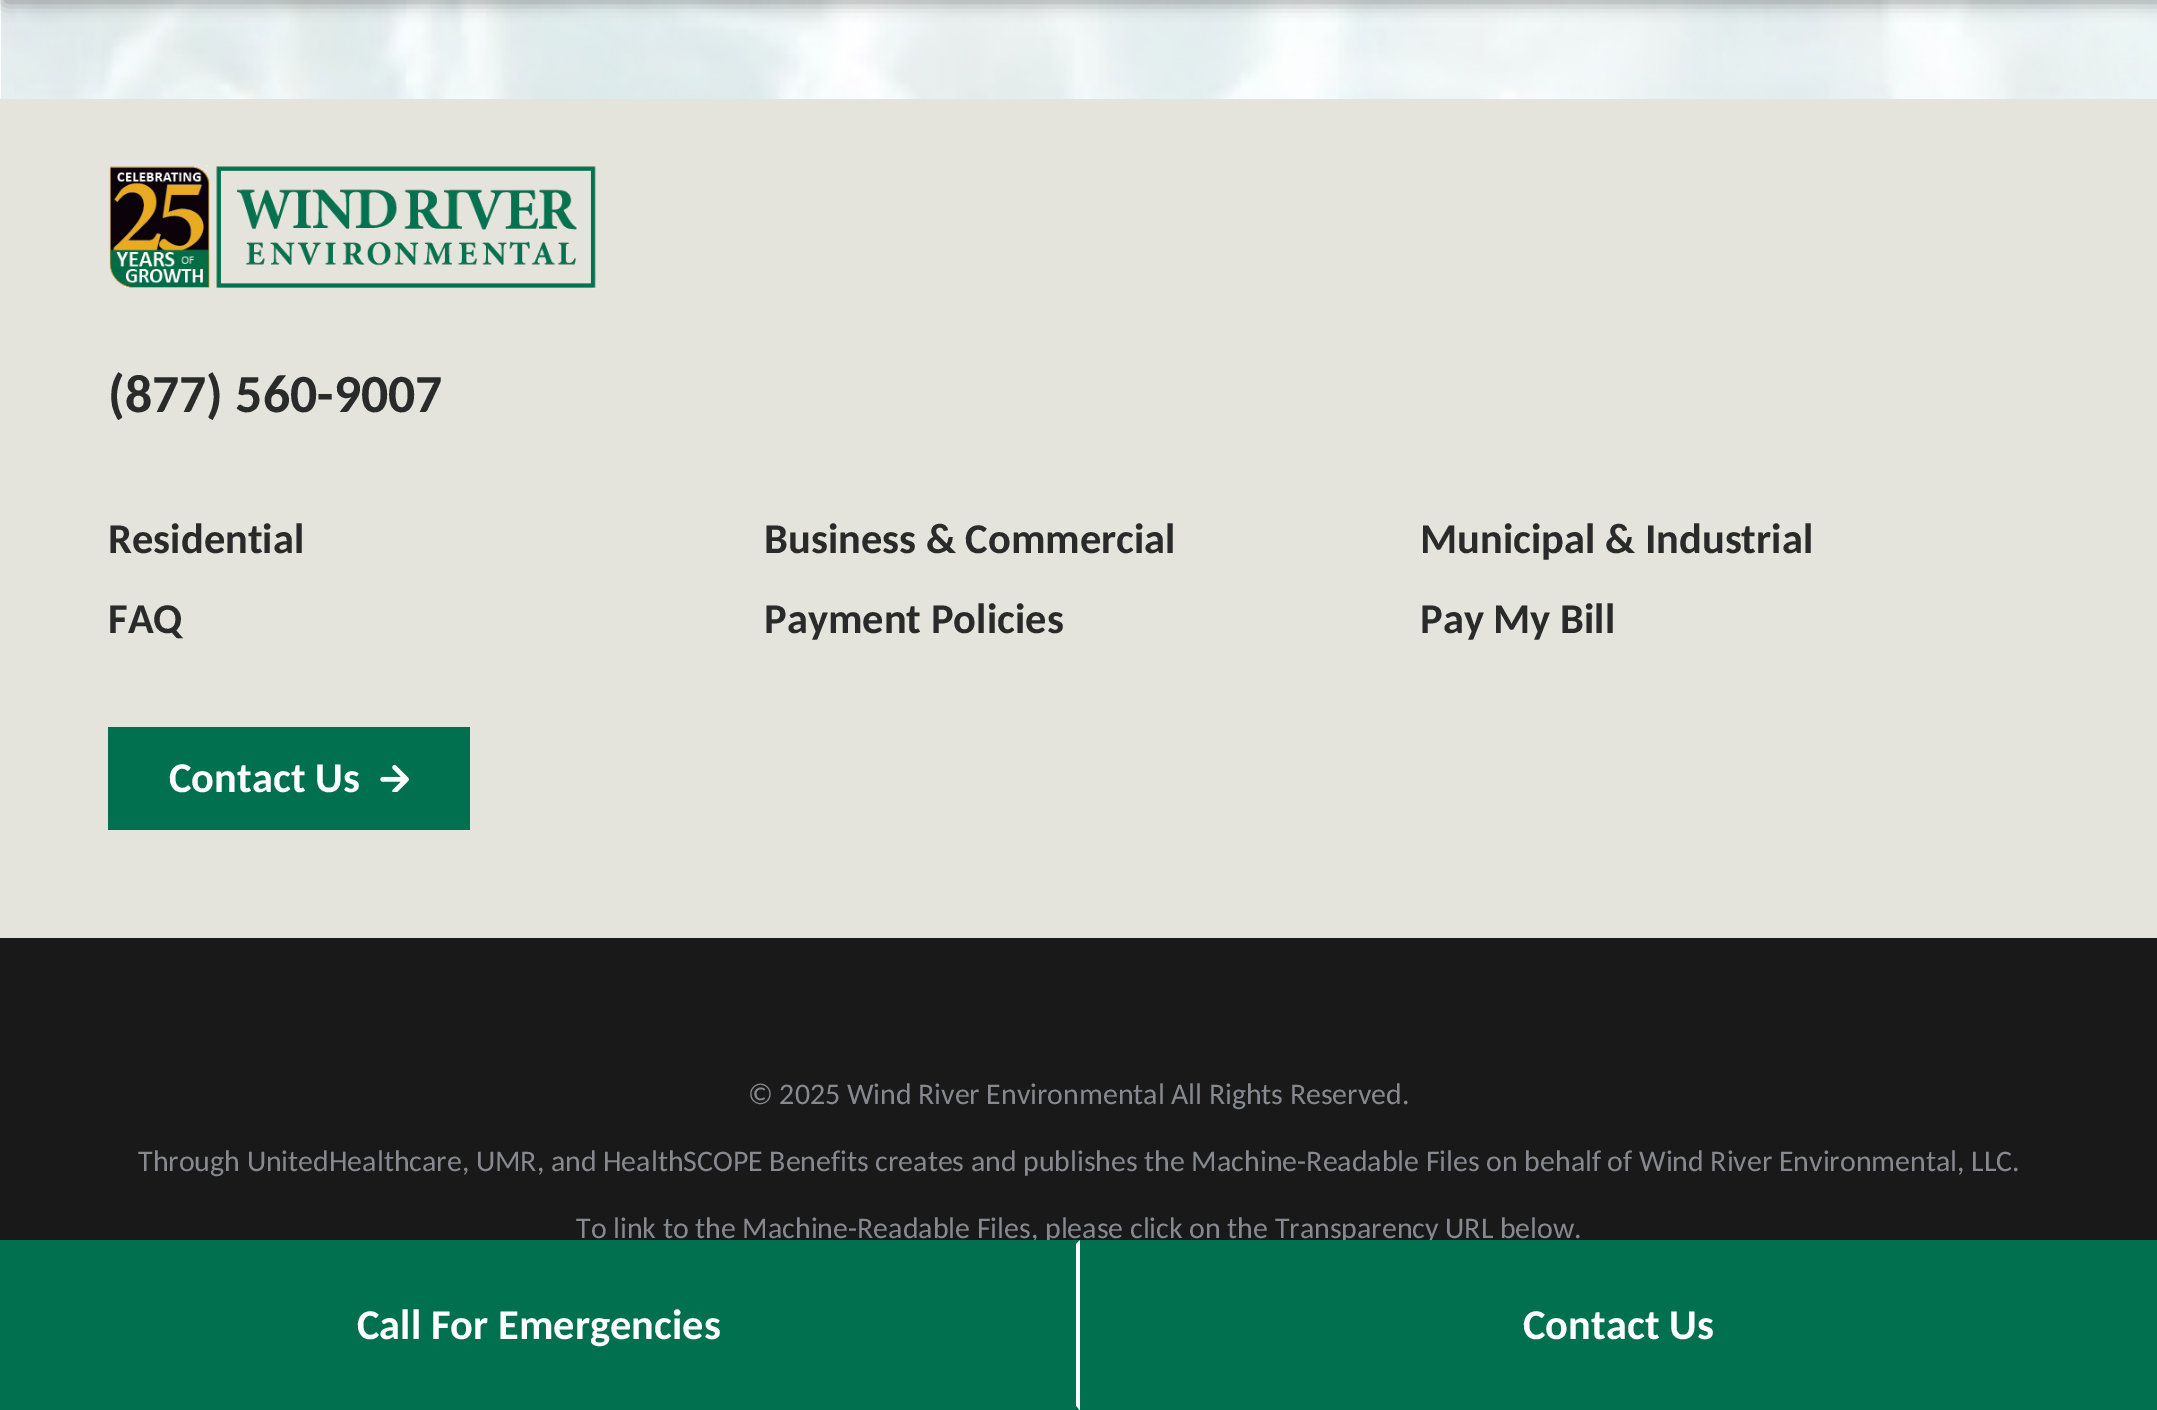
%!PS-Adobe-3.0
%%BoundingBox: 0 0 2157 1410
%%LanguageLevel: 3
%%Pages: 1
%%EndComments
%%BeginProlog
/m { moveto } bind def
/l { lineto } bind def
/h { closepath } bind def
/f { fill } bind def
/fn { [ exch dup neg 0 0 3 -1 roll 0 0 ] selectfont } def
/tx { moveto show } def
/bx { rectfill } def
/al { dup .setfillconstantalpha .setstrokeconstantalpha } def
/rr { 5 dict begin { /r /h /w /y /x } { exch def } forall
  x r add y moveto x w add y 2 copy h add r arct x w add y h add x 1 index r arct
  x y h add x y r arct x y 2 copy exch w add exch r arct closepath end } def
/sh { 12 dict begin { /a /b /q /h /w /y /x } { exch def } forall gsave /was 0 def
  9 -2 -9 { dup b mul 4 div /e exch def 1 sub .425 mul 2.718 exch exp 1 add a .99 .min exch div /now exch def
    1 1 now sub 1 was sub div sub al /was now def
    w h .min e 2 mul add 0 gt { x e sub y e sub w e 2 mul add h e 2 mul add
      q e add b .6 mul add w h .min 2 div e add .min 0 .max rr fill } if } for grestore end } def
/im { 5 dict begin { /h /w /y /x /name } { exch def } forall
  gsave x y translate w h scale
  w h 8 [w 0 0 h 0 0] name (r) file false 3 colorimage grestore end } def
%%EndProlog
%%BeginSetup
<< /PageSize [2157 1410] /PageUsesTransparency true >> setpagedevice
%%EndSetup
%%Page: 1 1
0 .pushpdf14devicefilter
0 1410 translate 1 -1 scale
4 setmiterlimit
1 setgray
0 0 2157 1410 bx
(image2.raw) 1 0 2156 99 im
0 setgray
5 -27 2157 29 0 9 0.4 sh
0.894 0.894 0.863 setrgbcolor
0 99 2157 839 bx
(image0.raw) 109 165 487 124 im
/Carlito-Bold 53.75 fn
0.161 0.169 0.169 setrgbcolor
(\(877\) 560-9007) 108 412 tx
/Carlito-Bold 42.5 fn
(Residential) 108 553 tx
(Business & Commercial) 764 553 tx
(Municipal & Industrial) 1420 553 tx
(FAQ) 108 633 tx
(Payment Policies) 764 633 tx
(Pay My Bill) 1420 633 tx
0 0.439 0.31 setrgbcolor
108 727 362 103 bx
1 setgray
(Contact Us) 169 792 tx
(image1.raw) 380 765 29 27 im
0.098 setgray
0 938 2157 302 bx
/Carlito-Regular 29.9 fn
0.525 0.537 0.561 setrgbcolor
748 1104 m -0.25 0 32 (© 2025 Wind River Environmental All Rights Reserved.) widthshow
138 1171 m -0.2 0 32 (Through UnitedHealthcare, UMR, and HealthSCOPE Benefits creates and publishes the Machine-Readable Files on behalf of Wind River Environmental, LLC.) widthshow
576 1238 m -0.1 0 32 (To link to the Machine-Readable Files, please click on the Transparency URL below.) widthshow
0 0.439 0.31 setrgbcolor
0 1240 2157 170 bx
1 setgray
1080 1240 m 1080 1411 l 1076 1406 l 1076 1244 l h f
0 0.439 0.31 setrgbcolor
1080 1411 m 0 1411 l 4 1406 l 1076 1406 l h f
/Carlito-Bold 42.5 fn
1 setgray
(Call For Emergencies) 357 1339 tx
(Contact Us) 1523 1339 tx
.poppdf14devicefilter showpage
%%EOF
